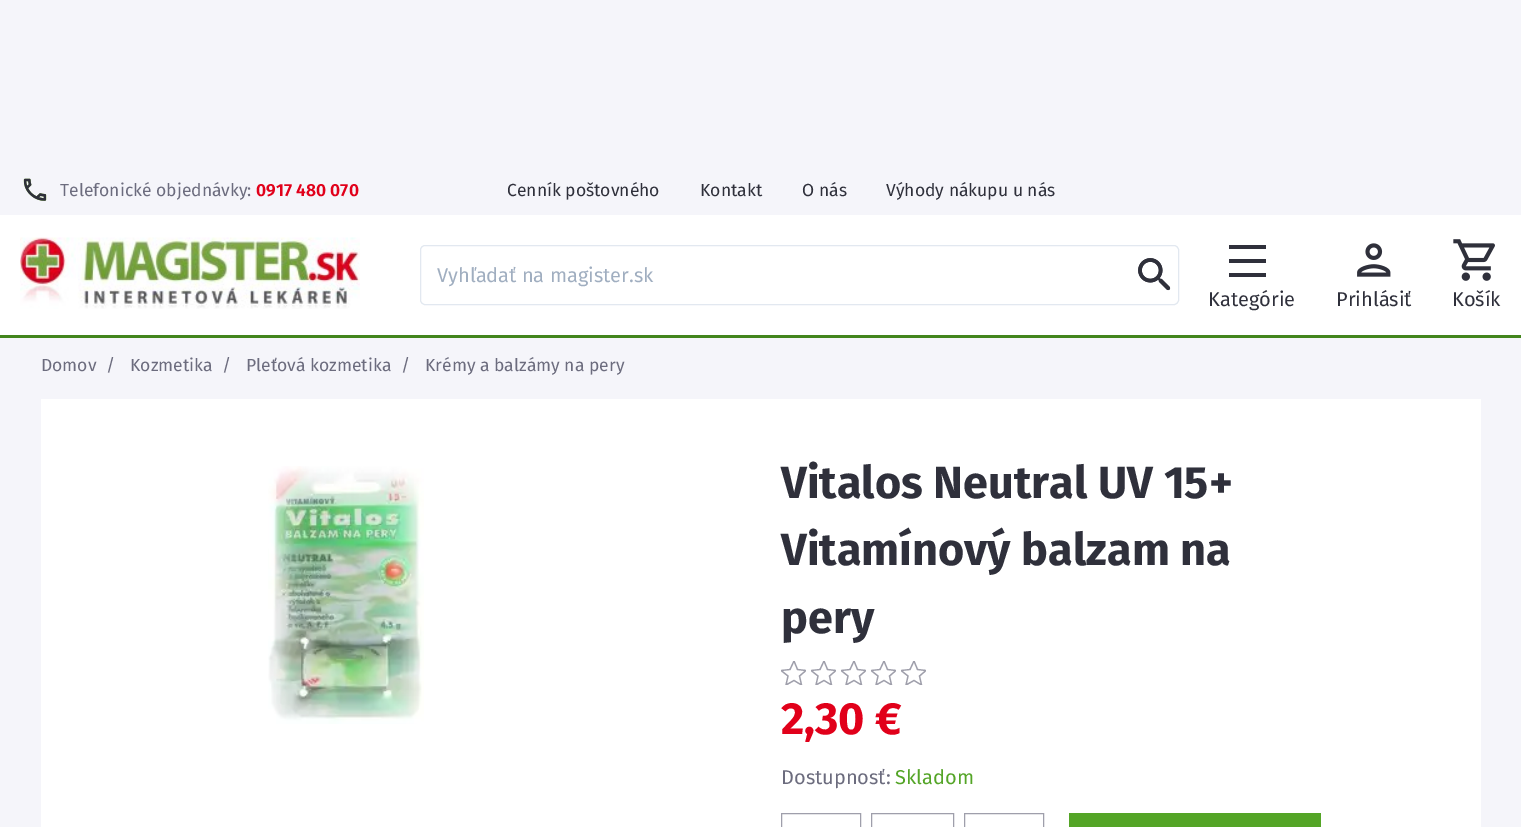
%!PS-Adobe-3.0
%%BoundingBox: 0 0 1521 827
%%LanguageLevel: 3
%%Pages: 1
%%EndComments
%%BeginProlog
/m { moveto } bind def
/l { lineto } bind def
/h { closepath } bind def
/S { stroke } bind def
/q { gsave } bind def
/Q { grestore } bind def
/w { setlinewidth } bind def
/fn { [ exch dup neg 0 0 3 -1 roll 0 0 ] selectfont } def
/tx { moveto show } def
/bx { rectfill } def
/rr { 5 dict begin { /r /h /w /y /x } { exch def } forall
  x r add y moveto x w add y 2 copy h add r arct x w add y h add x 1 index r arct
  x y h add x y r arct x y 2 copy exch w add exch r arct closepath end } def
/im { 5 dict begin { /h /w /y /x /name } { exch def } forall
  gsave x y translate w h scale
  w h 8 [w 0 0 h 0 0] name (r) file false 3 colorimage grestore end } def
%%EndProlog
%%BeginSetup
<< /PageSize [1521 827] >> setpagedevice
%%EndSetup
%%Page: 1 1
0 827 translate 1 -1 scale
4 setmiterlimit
0.961 0.961 0.98 setrgbcolor
0 0 1521 827 bx
(image0.raw) 23 178 24 23 im
/FiraSans-Regular 17.5 fn
0.424 0.424 0.494 setrgbcolor
(Telefonické objednávky:) 60 196 tx
/FiraSans-SemiBold 17.5 fn
0.882 0 0.102 setrgbcolor
(0917 480 070) 256 196 tx
/FiraSans-Regular 17.5 fn
0.184 0.188 0.231 setrgbcolor
(Cenník poštovného) 507 196 tx
(Kontakt) 700 196 tx
(O nás) 802 196 tx
(Výhody nákupu u nás) 886 196 tx
1 setgray
0 215 1521 120 bx
(image1.raw) 20 237 340 72 im
(image3.raw) 1138 258 33 33 im
(image2.raw) 1138 258 33 33 im
0.886 0.91 0.941 setrgbcolor
420.5 245.5 758 59 4.5 rr S
/FiraSans-Regular 20 fn
0.627 0.682 0.753 setrgbcolor
(Vyhľadať na magister.sk) 437 282 tx
0.184 0.188 0.231 setrgbcolor
1229 245 37 4 bx
1229 259 37 4 bx
1229 273 37 4 bx
(Kategórie) 1208 306 tx
(image4.raw) 1357 243 34 34 im
(Prihlásiť) 1336 306 tx
(image5.raw) 1453 239 42 42 im
(Košík) 1452 306 tx
0.259 0.522 0.11 setrgbcolor
0 335 1521 3 bx
/FiraSans-Regular 17.5 fn
0.424 0.424 0.494 setrgbcolor
(Domov) 41 371 tx
(/) 106 371 tx
(Kozmetika) 130 371 tx
(/) 222 371 tx
(Pleťová kozmetika) 246 371 tx
(/) 401 371 tx
(Krémy a balzámy na pery) 425 371 tx
1 setgray
41 399 1440 428 bx
(image6.raw) 268 466 156 258 im
/FiraSans-Bold 45 fn
0.184 0.188 0.231 setrgbcolor
(Vitalos Neutral UV 15+) 781 498 tx
(Vitamínový balzam na) 781 565 tx
(pery) 781 633 tx
q
781 661 25 24 rectclip
0.624 0.624 0.671 setrgbcolor
1.2 w
794 680.5 m 801.5 685 l 799.5 676 l 806 670.5 l 797.5 669.5 l 794 661 l 790 669.5 l 781 670.5 l 788 676 l 786 685 l h S
Q
q
811 661 25 24 rectclip
0.624 0.624 0.671 setrgbcolor
1.2 w
824 680.5 m 831.5 685 l 829.5 676 l 836 670.5 l 827.5 669.5 l 824 661 l 820 669.5 l 811 670.5 l 818 676 l 816 685 l h S
Q
q
841 661 25 24 rectclip
0.624 0.624 0.671 setrgbcolor
1.2 w
854 680.5 m 861.5 685 l 859.5 676 l 866 670.5 l 857.5 669.5 l 854 661 l 850 669.5 l 841 670.5 l 848 676 l 846 685 l h S
Q
q
871 661 25 24 rectclip
0.624 0.624 0.671 setrgbcolor
1.2 w
884 680.5 m 891.5 685 l 889.5 676 l 896 670.5 l 887.5 669.5 l 884 661 l 880 669.5 l 871 670.5 l 878 676 l 876 685 l h S
Q
q
901 661 25 24 rectclip
0.624 0.624 0.671 setrgbcolor
1.2 w
914 680.5 m 921.5 685 l 919.5 676 l 926 670.5 l 917.5 669.5 l 914 661 l 910 669.5 l 901 670.5 l 908 676 l 906 685 l h S
Q
0.882 0 0.102 setrgbcolor
(2,30 €) 781 734 tx
/FiraSans-Regular 20 fn
0.424 0.424 0.494 setrgbcolor
(Dostupnosť:) 781 784 tx
0.329 0.647 0.153 setrgbcolor
(Skladom) 895 784 tx
0.624 0.624 0.671 setrgbcolor
781.5 813.5 79 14 rectstroke
871.5 813.5 82 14 rectstroke
964.5 813.5 79 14 rectstroke
0.329 0.647 0.153 setrgbcolor
1069 813 252 14 bx
showpage
%%EOF
